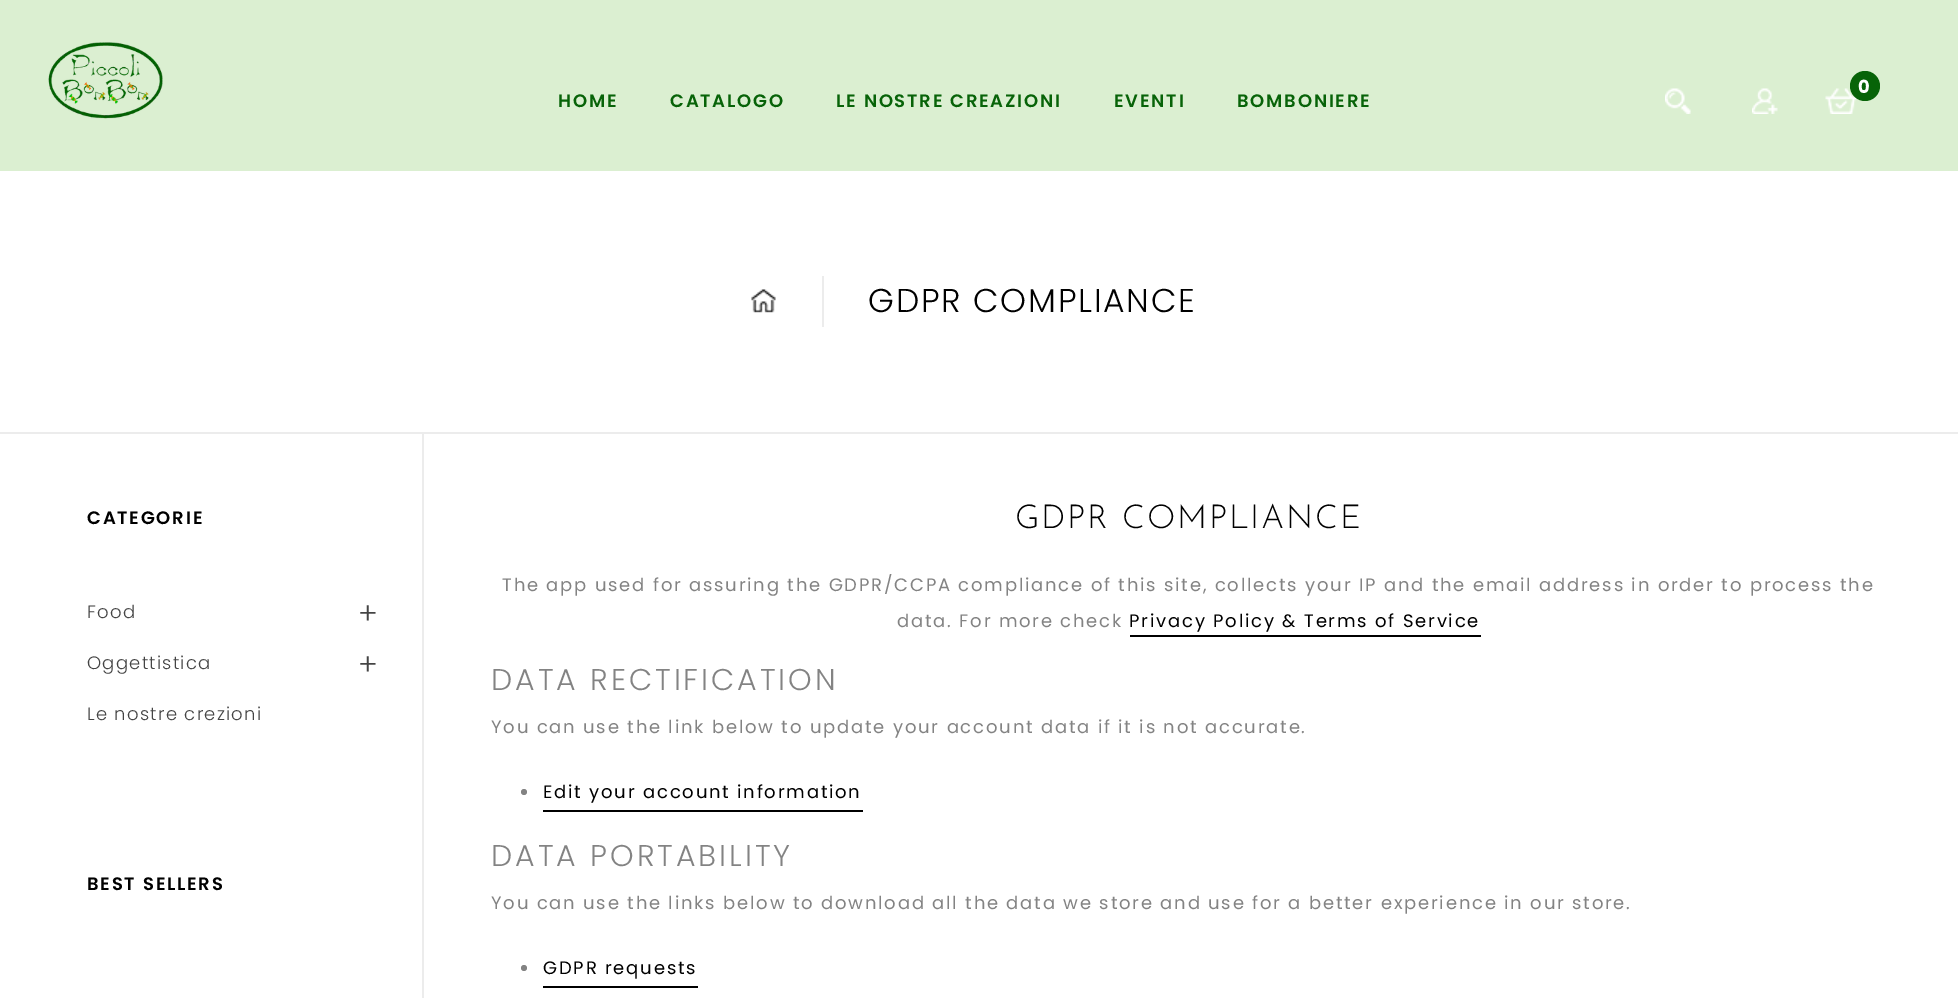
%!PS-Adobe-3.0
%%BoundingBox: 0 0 1958 998
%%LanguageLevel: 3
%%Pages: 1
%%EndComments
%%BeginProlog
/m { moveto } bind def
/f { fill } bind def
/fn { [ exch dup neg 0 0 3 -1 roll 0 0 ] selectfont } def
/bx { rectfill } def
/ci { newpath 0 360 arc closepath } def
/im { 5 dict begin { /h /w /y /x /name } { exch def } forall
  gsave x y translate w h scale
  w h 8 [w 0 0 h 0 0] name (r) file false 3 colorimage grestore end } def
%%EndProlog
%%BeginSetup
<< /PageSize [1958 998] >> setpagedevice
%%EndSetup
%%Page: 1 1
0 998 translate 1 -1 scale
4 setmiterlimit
1 setgray
0 0 1958 998 bx
0.859 0.937 0.82 setrgbcolor
0 0 1958 171 bx
(image0.raw) 48 42 115 77 im
(image1.raw) 1825 88 32 26 im
0.027 0.388 0.031 setrgbcolor
1865 86 15 ci f
/Poppins-Bold 18 fn
1 setgray
1858 93 m 1.8 0 (0) ashow
(image2.raw) 1665 88 26 26 im
(image3.raw) 1752 88 26 26 im
/Poppins-SemiBold 18 fn
0.027 0.388 0.031 setrgbcolor
558 107 m 1.8 0 (HOME) ashow
670 107 m 1.8 0 (CATALOGO) ashow
836 107 m 1.8 0 (LE NOSTRE CREAZIONI) ashow
1114 107 m 1.8 0 (EVENTI) ashow
1237 107 m 1.8 0 (BOMBONIERE) ashow
0.925 setgray
0 432 1958 2 bx
(image4.raw) 751 289 25 24 im
822 276 2 51 bx
/Poppins-Light 33 fn
0 setgray
868 312 m 1.8 0 (GDPR COMPLIANCE) ashow
/Poppins-SemiBold 18 fn
87 524 m 1.8 0 (CATEGORIE) ashow
/Poppins-Light 18 fn
0.267 setgray
87 618 m 1.25 0 (Food) ashow
/Poppins-Light 30 fn
358 624 m 1.8 0 (+) ashow
/Poppins-Light 18 fn
87 669 m 1.25 0 (Oggettistica) ashow
/Poppins-Light 30 fn
358 675 m 1.8 0 (+) ashow
/Poppins-Light 18 fn
87 720 m 1.25 0 (Le nostre crezioni) ashow
/Poppins-SemiBold 18 fn
0 setgray
87 890 m 1.8 0 (BEST SELLERS) ashow
0.925 setgray
422 434 2 564 bx
/JosefinSans-Thin 33 fn
0 setgray
1015 528 m 1.8 0 (GDPR COMPLIANCE) ashow
/Poppins-Regular 18 fn
0.514 setgray
502 591 m 1.8 0 (The app used for assuring the GDPR/CCPA compliance of this site, collects your IP and the email address in order to process the) ashow
897 627 m 1.8 0 (data. For more check) ashow
0 setgray
1129 627 m 1.8 0 (Privacy Policy & Terms of Service) ashow
1130 635 351 2 bx
/Poppins-Light 30 fn
0.514 setgray
491 690 m 3 0 (DATA RECTIFICATION) ashow
/Poppins-Regular 18 fn
491 733 m 1.8 0 (You can use the link below to update your account data if it is not accurate.) ashow
524 792 3 ci f
0 setgray
543 810 320 2 bx
543 798 m 1.8 0 (Edit your account information) ashow
/Poppins-Light 30 fn
0.514 setgray
491 866 m 3 0 (DATA PORTABILITY) ashow
/Poppins-Regular 18 fn
491 909 m 1.8 0 (You can use the links below to download all the data we store and use for a better experience in our store.) ashow
524 968 3 ci f
0 setgray
543 986 155 2 bx
543 974 m 1.8 0 (GDPR requests) ashow
showpage
%%EOF
